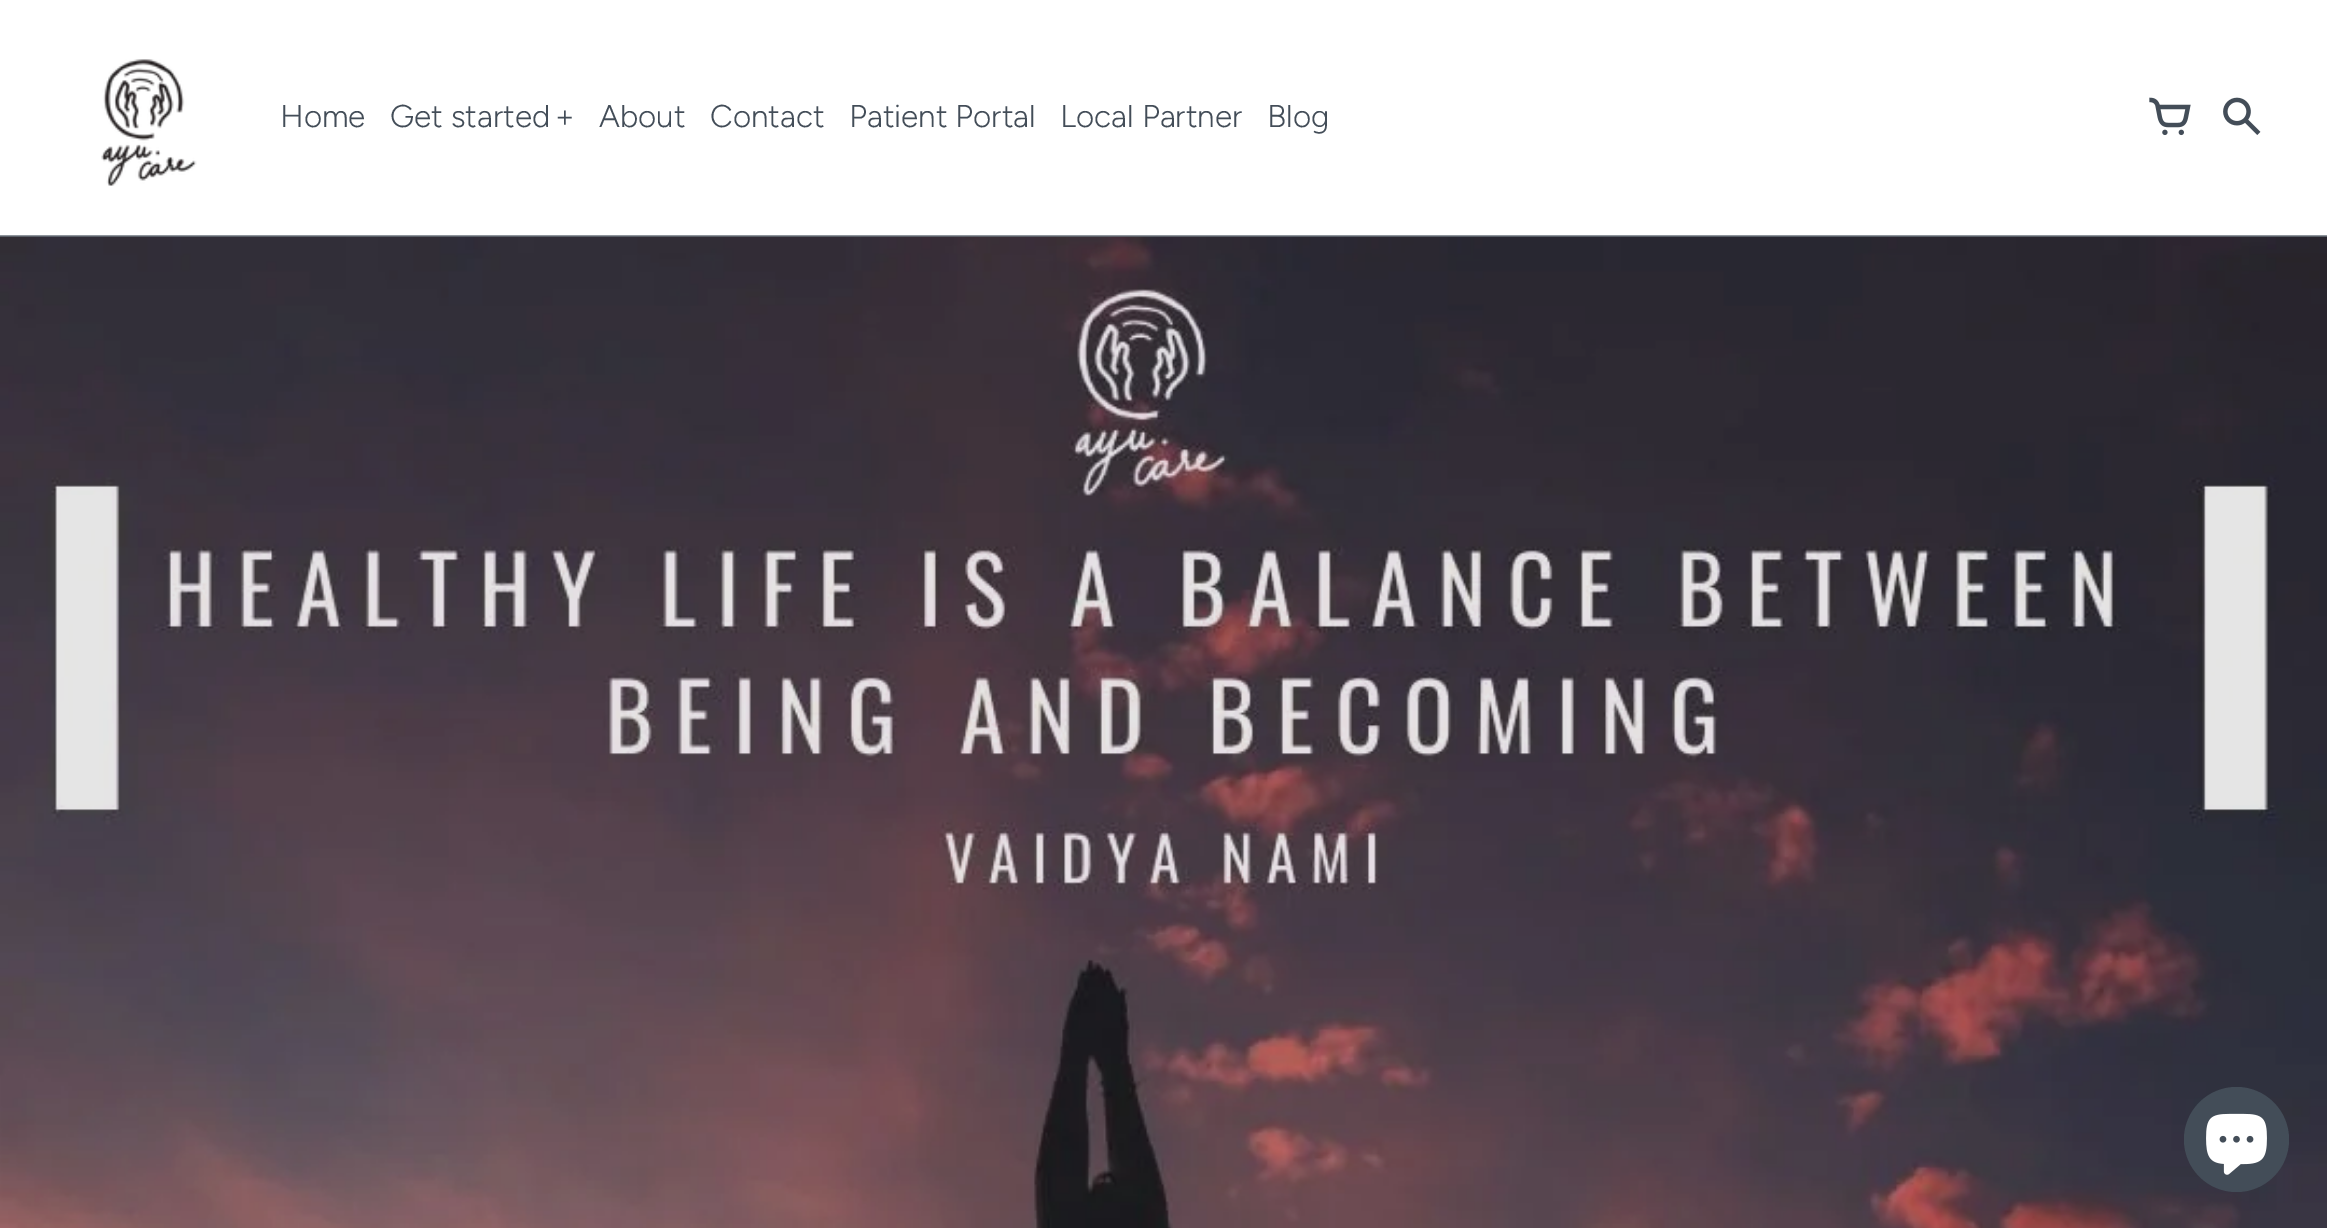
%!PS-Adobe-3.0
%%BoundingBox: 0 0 2327 1228
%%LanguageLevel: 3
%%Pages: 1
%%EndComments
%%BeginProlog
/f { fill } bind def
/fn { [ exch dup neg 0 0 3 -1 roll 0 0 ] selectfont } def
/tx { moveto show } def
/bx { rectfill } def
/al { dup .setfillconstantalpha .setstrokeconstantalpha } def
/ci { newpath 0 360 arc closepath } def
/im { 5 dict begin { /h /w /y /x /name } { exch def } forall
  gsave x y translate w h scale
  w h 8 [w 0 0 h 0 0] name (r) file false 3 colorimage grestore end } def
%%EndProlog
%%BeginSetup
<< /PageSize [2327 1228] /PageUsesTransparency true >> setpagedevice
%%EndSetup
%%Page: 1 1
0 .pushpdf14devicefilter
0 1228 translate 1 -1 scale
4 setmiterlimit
1 setgray
0 0 2327 1228 bx
0.902 setgray
0 236 2327 1 bx
(image3.raw) 0 236 2327 992 im
0.6 al
0.263 0.302 0.345 setrgbcolor
0 235 2327 2 bx
1 al
(image0.raw) 101 59 96 127 im
/Figtree-Light 31.5 fn
(Home) 280 127 tx
(Get started) 390 127 tx
(+) 555 127 tx
(About) 599 127 tx
(Contact) 710 127 tx
(Patient Portal) 849 127 tx
(Local Partner) 1060 127 tx
(Blog) 1267 127 tx
(image1.raw) 2149 97 42 39 im
(image2.raw) 2223 97 38 38 im
2236.5 1139.5 52.5 ci f
(image4.raw) 2206 1113 61 62 im
.poppdf14devicefilter showpage
%%EOF
